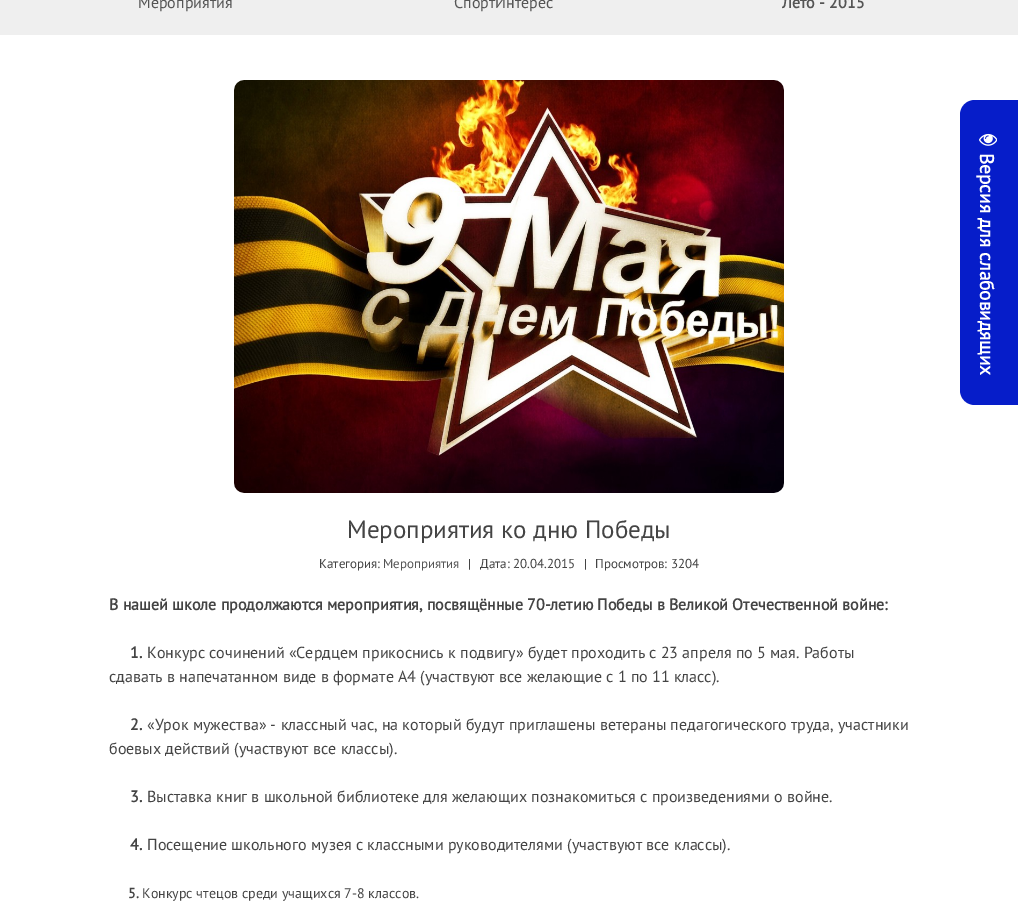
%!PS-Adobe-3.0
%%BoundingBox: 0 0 1018 917
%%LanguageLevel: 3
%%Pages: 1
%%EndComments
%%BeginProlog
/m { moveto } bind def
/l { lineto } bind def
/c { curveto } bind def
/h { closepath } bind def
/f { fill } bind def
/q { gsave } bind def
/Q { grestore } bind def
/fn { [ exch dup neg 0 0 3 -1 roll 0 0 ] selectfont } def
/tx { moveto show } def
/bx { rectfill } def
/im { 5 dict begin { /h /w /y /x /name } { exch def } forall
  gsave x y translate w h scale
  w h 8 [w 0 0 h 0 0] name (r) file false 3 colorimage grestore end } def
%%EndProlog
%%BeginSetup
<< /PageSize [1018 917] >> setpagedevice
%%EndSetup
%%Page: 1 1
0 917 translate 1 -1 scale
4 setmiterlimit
1 setgray
0 0 1018 917 bx
0.937 setgray
0 0 1018 35 bx
/PTSans-Regular 16 fn
0.333 setgray
(Мероприятия) 138 8 tx
(СпортИнтерес) 454 8 tx
/PTSans-Bold 16 fn
(Лето - 2015) 782 8 tx
0.024 0.114 0.788 setrgbcolor
975 100 m 1018 100 l 1018 405 l 975 405 l 966.5 405 960 398.5 960 390 c 960 115 l 960 106.5 966.5 100 975 100 c h f
(image0.raw) 979 133 18 13 im
/PTSans-Bold 19.25 fn
1 setgray
q 980 153 translate 90 rotate 0 0 m (Версия для слабовидящих) show Q
(image1.raw) 234 80 550 413 im
/PTSans-Regular 25 fn
0.267 setgray
(Мероприятия ко дню Победы) 347 538 tx
/PTSans-Regular 13 fn
(Категория:) 319 568 tx
0.333 setgray
(Мероприятия) 383 568 tx
0.267 setgray
(|) 468 568 tx
(Дата: 20.04.2015) 480 568 tx
(|) 584 568 tx
(Просмотров: 3204) 595 568 tx
/PTSans-Bold 16 fn
(В нашей школе продолжаются мероприятия, посвящённые 70-летию Победы в Великой Отечественной войне:) 109 610 tx
(1.) 130 658 tx
/PTSans-Regular 16 fn
(Конкурс сочинений «Сердцем прикоснись к подвигу» будет проходить с 23 апреля по 5 мая. Работы) 147 658 tx
(сдавать в напечатанном виде в формате А4 \(участвуют все желающие с 1 по 11 класс\).) 109 682 tx
/PTSans-Bold 16 fn
(2.) 130 730 tx
/PTSans-Regular 16 fn
(«Урок мужества» - классный час, на который будут приглашены ветераны педагогического труда, участники) 147 730 tx
(боевых действий \(участвуют все классы\).) 109 754 tx
/PTSans-Bold 16 fn
(3.) 130 802 tx
/PTSans-Regular 16 fn
(Выставка книг в школьной библиотеке для желающих познакомиться с произведениями о войне.) 147 802 tx
/PTSans-Bold 16 fn
(4.) 130 850 tx
/PTSans-Regular 16 fn
(Посещение школьного музея с классными руководителями \(участвуют все классы\).) 147 850 tx
/PTSans-Bold 14 fn
(5.) 128 898 tx
/PTSans-Regular 14 fn
(Конкурс чтецов среди учащихся 7-8 классов.) 142 898 tx
showpage
%%EOF
